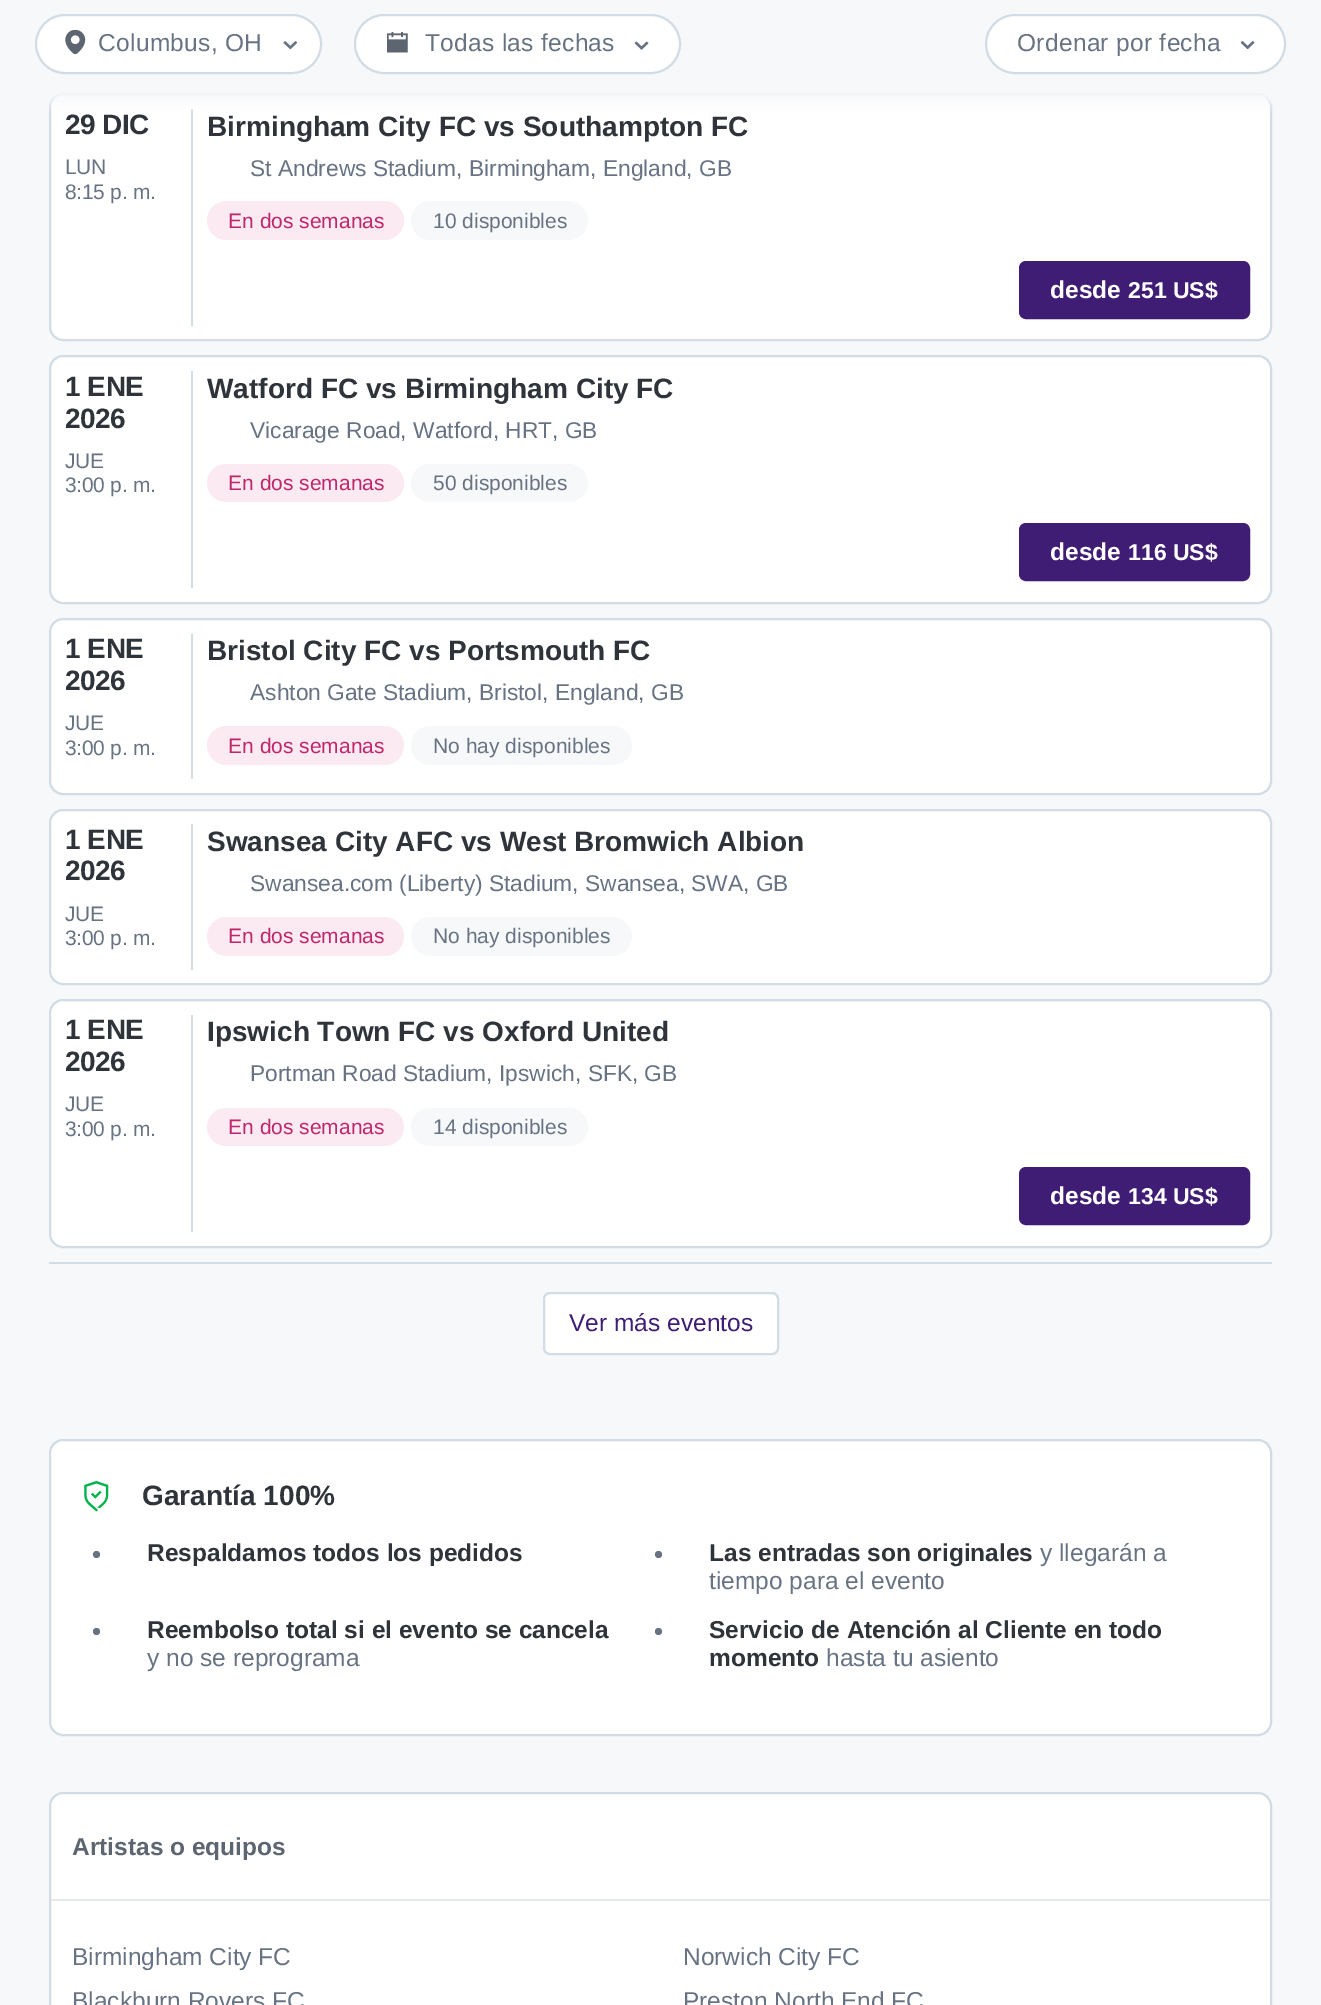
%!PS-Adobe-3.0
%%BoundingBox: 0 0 1321 2005
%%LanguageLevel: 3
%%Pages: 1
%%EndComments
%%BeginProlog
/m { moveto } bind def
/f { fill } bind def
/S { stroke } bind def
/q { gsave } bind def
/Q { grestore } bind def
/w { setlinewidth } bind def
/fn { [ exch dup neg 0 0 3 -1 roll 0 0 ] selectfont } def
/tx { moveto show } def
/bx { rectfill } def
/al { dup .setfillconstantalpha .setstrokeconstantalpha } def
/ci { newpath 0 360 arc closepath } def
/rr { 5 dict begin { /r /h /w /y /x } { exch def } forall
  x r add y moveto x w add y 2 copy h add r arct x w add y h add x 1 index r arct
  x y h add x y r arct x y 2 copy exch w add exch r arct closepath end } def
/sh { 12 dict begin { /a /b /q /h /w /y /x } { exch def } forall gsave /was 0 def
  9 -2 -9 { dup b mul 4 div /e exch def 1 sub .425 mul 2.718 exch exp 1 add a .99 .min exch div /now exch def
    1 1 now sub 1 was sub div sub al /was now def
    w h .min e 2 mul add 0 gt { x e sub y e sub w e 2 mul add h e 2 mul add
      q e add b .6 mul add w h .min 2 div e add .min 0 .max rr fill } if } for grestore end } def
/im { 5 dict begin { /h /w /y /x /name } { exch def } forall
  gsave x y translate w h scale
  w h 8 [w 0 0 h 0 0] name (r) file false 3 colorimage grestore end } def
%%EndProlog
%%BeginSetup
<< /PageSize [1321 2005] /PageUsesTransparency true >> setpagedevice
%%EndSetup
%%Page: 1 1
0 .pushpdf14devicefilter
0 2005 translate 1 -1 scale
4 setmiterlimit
0.965 0.973 0.976 setrgbcolor
0 0 1321 2005 bx
1 setgray
50 94 1221 246 13 rr q f Q
0.82 0.863 0.898 setrgbcolor
2 w
S
191 109 2 217 bx
0.965 0.973 0.976 setrgbcolor
35 14 1251 89 0 7 1 sh
1 setgray
36 15 285 58 29 rr q f Q
0.82 0.863 0.898 setrgbcolor
S
(image0.raw) 65 30 21 24 im
/LiberationSans-Regular 24.5 fn
0.404 0.451 0.514 setrgbcolor
98 51 m 0.3 0 (Columbus, OH) ashow
(image1.raw) 283 41 15 9 im
1 setgray
355 15 325 58 29 rr q f Q
0.82 0.863 0.898 setrgbcolor
S
(image2.raw) 387 32 21 21 im
0.404 0.451 0.514 setrgbcolor
425 51 m 0.3 0 (Todas las fechas) ashow
(image3.raw) 634 41 15 9 im
1 setgray
986 15 299 58 29 rr q f Q
0.82 0.863 0.898 setrgbcolor
S
0.404 0.451 0.514 setrgbcolor
1017 51 m 0.3 0 (Ordenar por fecha) ashow
(image4.raw) 1240 41 15 9 im
/LiberationSans-Bold 28 fn
0.184 0.204 0.231 setrgbcolor
65 134 m -0.5 0 (29 DIC) ashow
/LiberationSans-Regular 21 fn
0.404 0.451 0.514 setrgbcolor
65 174 m -0.25 0 (LUN) ashow
65 199 m -0.25 0 (8:15 p. m.) ashow
/LiberationSans-Bold 28 fn
0.184 0.204 0.231 setrgbcolor
(Birmingham City FC vs Southampton FC) 207 136 tx
/LiberationSans-Regular 22.75 fn
0.404 0.451 0.514 setrgbcolor
(St Andrews Stadium, Birmingham, England, GB) 250 176 tx
0.984 0.918 0.945 setrgbcolor
207 201 197 39 19.5 rr f
/LiberationSans-Regular 21 fn
0.749 0.149 0.42 setrgbcolor
(En dos semanas) 228 228 tx
0.965 0.973 0.976 setrgbcolor
411 201 177 39 19.5 rr f
0.404 0.451 0.514 setrgbcolor
(10 disponibles) 433 228 tx
0.247 0.114 0.459 setrgbcolor
1020 262 229 56 6 rr q f Q
S
/LiberationSans-Bold 24.5 fn
1 setgray
(desde) 1050 298 tx
/LiberationSans-Bold 23 fn
(251 US$) 1128 298 tx
50 356 1221 247 13 rr q f Q
0.82 0.863 0.898 setrgbcolor
S
191 371 2 217 bx
/LiberationSans-Bold 28 fn
0.184 0.204 0.231 setrgbcolor
65 396 m -0.5 0 (1 ENE) ashow
65 428 m -0.5 0 (2026) ashow
/LiberationSans-Regular 21 fn
0.404 0.451 0.514 setrgbcolor
65 468 m -0.25 0 (JUE) ashow
65 492 m -0.25 0 (3:00 p. m.) ashow
/LiberationSans-Bold 28 fn
0.184 0.204 0.231 setrgbcolor
(Watford FC vs Birmingham City FC) 207 398 tx
/LiberationSans-Regular 22.75 fn
0.404 0.451 0.514 setrgbcolor
(Vicarage Road, Watford, HRT, GB) 250 438 tx
0.984 0.918 0.945 setrgbcolor
207 464 197 38 19 rr f
/LiberationSans-Regular 21 fn
0.749 0.149 0.42 setrgbcolor
(En dos semanas) 228 490 tx
0.965 0.973 0.976 setrgbcolor
411 464 177 38 19 rr f
0.404 0.451 0.514 setrgbcolor
(50 disponibles) 433 490 tx
0.247 0.114 0.459 setrgbcolor
1020 524 229 56 6 rr q f Q
S
/LiberationSans-Bold 24.5 fn
1 setgray
(desde) 1050 560 tx
/LiberationSans-Bold 23 fn
(116 US$) 1128 560 tx
50 619 1221 175 13 rr q f Q
0.82 0.863 0.898 setrgbcolor
S
191 634 2 145 bx
/LiberationSans-Bold 28 fn
0.184 0.204 0.231 setrgbcolor
65 658 m -0.5 0 (1 ENE) ashow
65 690 m -0.5 0 (2026) ashow
/LiberationSans-Regular 21 fn
0.404 0.451 0.514 setrgbcolor
65 730 m -0.25 0 (JUE) ashow
65 755 m -0.25 0 (3:00 p. m.) ashow
/LiberationSans-Bold 28 fn
0.184 0.204 0.231 setrgbcolor
(Bristol City FC vs Portsmouth FC) 207 660 tx
/LiberationSans-Regular 22.75 fn
0.404 0.451 0.514 setrgbcolor
(Ashton Gate Stadium, Bristol, England, GB) 250 700 tx
0.984 0.918 0.945 setrgbcolor
207 726 197 39 19.5 rr f
/LiberationSans-Regular 21 fn
0.749 0.149 0.42 setrgbcolor
(En dos semanas) 228 753 tx
0.965 0.973 0.976 setrgbcolor
411 726 221 39 19.5 rr f
0.404 0.451 0.514 setrgbcolor
(No hay disponibles) 433 753 tx
1 setgray
50 810 1221 174 13 rr q f Q
0.82 0.863 0.898 setrgbcolor
S
191 824 2 146 bx
/LiberationSans-Bold 28 fn
0.184 0.204 0.231 setrgbcolor
65 849 m -0.5 0 (1 ENE) ashow
65 880 m -0.5 0 (2026) ashow
/LiberationSans-Regular 21 fn
0.404 0.451 0.514 setrgbcolor
65 921 m -0.25 0 (JUE) ashow
65 945 m -0.25 0 (3:00 p. m.) ashow
/LiberationSans-Bold 28 fn
0.184 0.204 0.231 setrgbcolor
(Swansea City AFC vs West Bromwich Albion) 207 851 tx
/LiberationSans-Regular 22.75 fn
0.404 0.451 0.514 setrgbcolor
(Swansea.com \(Liberty\) Stadium, Swansea, SWA, GB) 250 891 tx
0.984 0.918 0.945 setrgbcolor
207 917 197 39 19.5 rr f
/LiberationSans-Regular 21 fn
0.749 0.149 0.42 setrgbcolor
(En dos semanas) 228 943 tx
0.965 0.973 0.976 setrgbcolor
411 917 221 39 19.5 rr f
0.404 0.451 0.514 setrgbcolor
(No hay disponibles) 433 943 tx
1 setgray
50 1000 1221 247 13 rr q f Q
0.82 0.863 0.898 setrgbcolor
S
191 1015 2 217 bx
/LiberationSans-Bold 28 fn
0.184 0.204 0.231 setrgbcolor
65 1039 m -0.5 0 (1 ENE) ashow
65 1071 m -0.5 0 (2026) ashow
/LiberationSans-Regular 21 fn
0.404 0.451 0.514 setrgbcolor
65 1111 m -0.25 0 (JUE) ashow
65 1136 m -0.25 0 (3:00 p. m.) ashow
/LiberationSans-Bold 28 fn
0.184 0.204 0.231 setrgbcolor
(Ipswich Town FC vs Oxford United) 207 1041 tx
/LiberationSans-Regular 22.75 fn
0.404 0.451 0.514 setrgbcolor
(Portman Road Stadium, Ipswich, SFK, GB) 250 1081 tx
0.984 0.918 0.945 setrgbcolor
207 1108 197 38 19 rr f
/LiberationSans-Regular 21 fn
0.749 0.149 0.42 setrgbcolor
(En dos semanas) 228 1134 tx
0.965 0.973 0.976 setrgbcolor
411 1108 177 38 19 rr f
0.404 0.451 0.514 setrgbcolor
(14 disponibles) 433 1134 tx
0.247 0.114 0.459 setrgbcolor
1020 1168 229 56 6 rr q f Q
S
/LiberationSans-Bold 24.5 fn
1 setgray
(desde) 1050 1204 tx
/LiberationSans-Bold 23 fn
(134 US$) 1128 1204 tx
0.82 0.863 0.898 setrgbcolor
49 1262 1223 2 bx
1 setgray
544 1293 234 61 6 rr q f Q
0.82 0.863 0.898 setrgbcolor
S
/LiberationSans-Regular 24.5 fn
0.247 0.114 0.459 setrgbcolor
(Ver más eventos) 569 1331 tx
1 setgray
50 1440 1221 295 13 rr q f Q
0.82 0.863 0.898 setrgbcolor
S
(image5.raw) 84 1481 25 31 im
/LiberationSans-Bold 28 fn
0.184 0.204 0.231 setrgbcolor
(Garantía 100%) 142 1505 tx
0.404 0.451 0.514 setrgbcolor
96.5 1554.5 3.5 ci f
/LiberationSans-Bold 24.5 fn
0.184 0.204 0.231 setrgbcolor
(Respaldamos todos los pedidos) 147 1561 tx
0.404 0.451 0.514 setrgbcolor
658.5 1554.5 3.5 ci f
0.184 0.204 0.231 setrgbcolor
(Las entradas son originales) 709 1561 tx
/LiberationSans-Regular 24.5 fn
0.404 0.451 0.514 setrgbcolor
(y llegarán a) 1040 1561 tx
(tiempo para el evento) 709 1589 tx
96.5 1631.5 3.5 ci f
/LiberationSans-Bold 24.5 fn
0.184 0.204 0.231 setrgbcolor
(Reembolso total si el evento se cancela) 147 1638 tx
/LiberationSans-Regular 24.5 fn
0.404 0.451 0.514 setrgbcolor
(y no se reprograma) 147 1666 tx
658.5 1631.5 3.5 ci f
/LiberationSans-Bold 24.5 fn
0.184 0.204 0.231 setrgbcolor
(Servicio de Atención al Cliente en todo) 709 1638 tx
(momento) 709 1666 tx
/LiberationSans-Regular 24.5 fn
0.404 0.451 0.514 setrgbcolor
(hasta tu asiento) 826 1666 tx
1 setgray
50 1793 1221 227 13 rr q f Q
0.82 0.863 0.898 setrgbcolor
S
0.902 0.914 0.922 setrgbcolor
51 1899 1220 2 bx
/LiberationSans-Bold 24.5 fn
0.361 0.396 0.439 setrgbcolor
(Artistas o equipos) 72 1855 tx
/LiberationSans-Regular 24.5 fn
0.404 0.451 0.514 setrgbcolor
(Birmingham City FC) 72 1965 tx
(Norwich City FC) 683 1965 tx
(Blackburn Rovers FC) 72 2009 tx
(Preston North End FC) 683 2009 tx
.poppdf14devicefilter showpage
%%EOF
